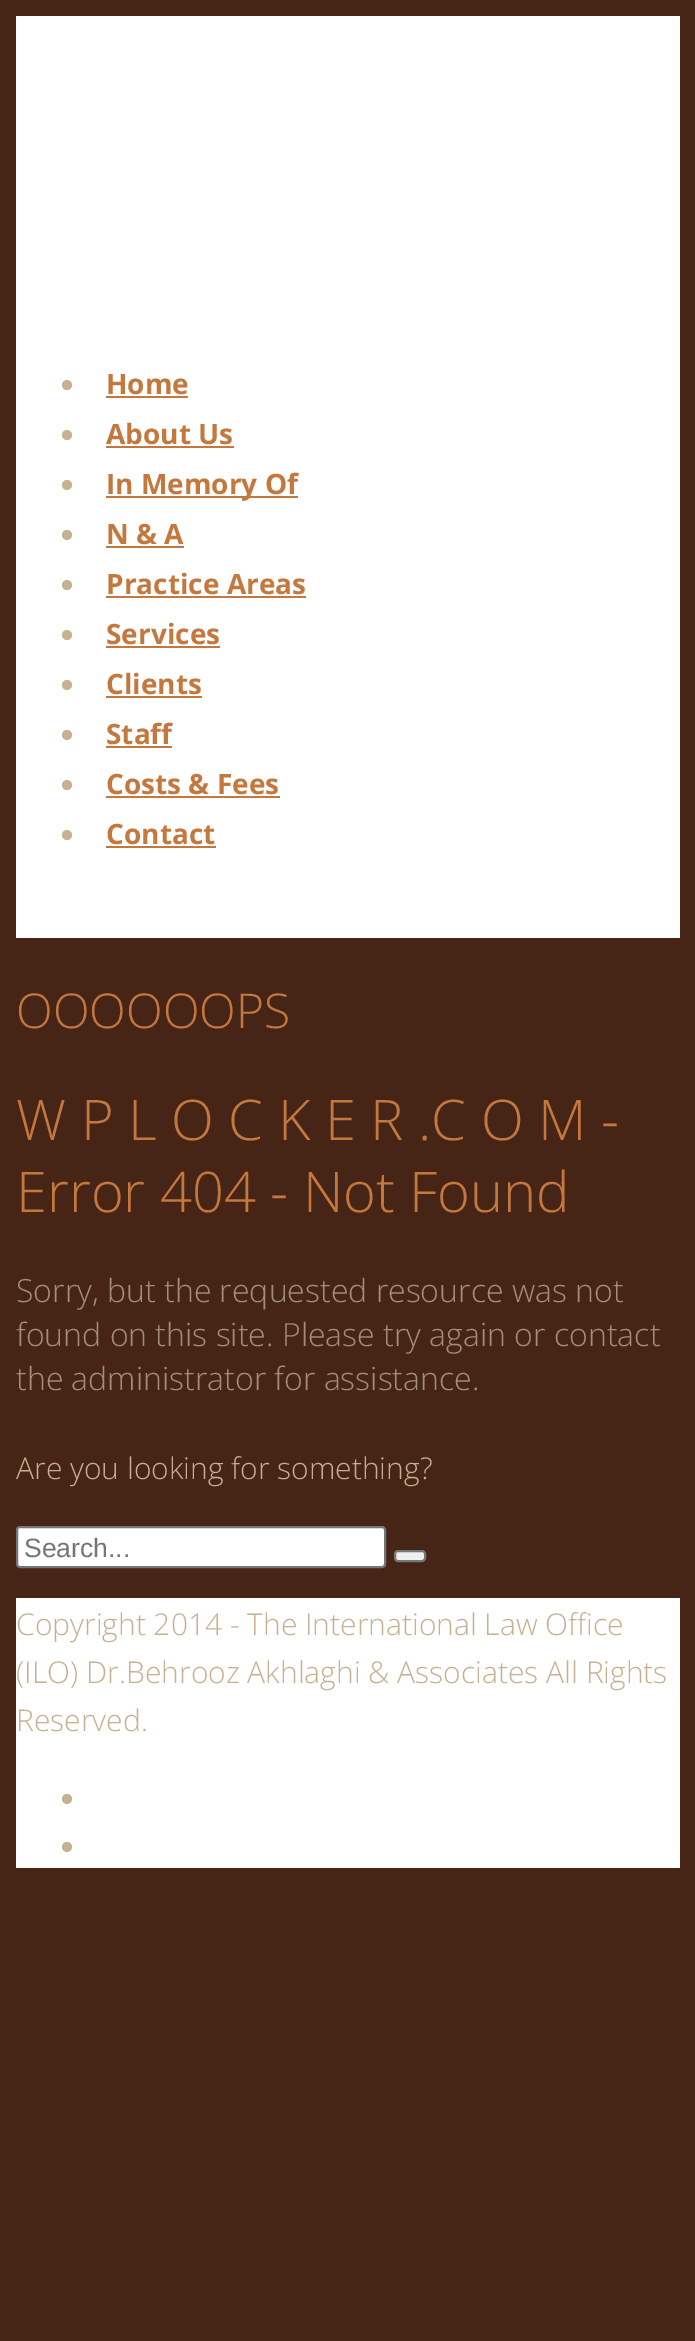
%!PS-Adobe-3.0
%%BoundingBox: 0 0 695 2341
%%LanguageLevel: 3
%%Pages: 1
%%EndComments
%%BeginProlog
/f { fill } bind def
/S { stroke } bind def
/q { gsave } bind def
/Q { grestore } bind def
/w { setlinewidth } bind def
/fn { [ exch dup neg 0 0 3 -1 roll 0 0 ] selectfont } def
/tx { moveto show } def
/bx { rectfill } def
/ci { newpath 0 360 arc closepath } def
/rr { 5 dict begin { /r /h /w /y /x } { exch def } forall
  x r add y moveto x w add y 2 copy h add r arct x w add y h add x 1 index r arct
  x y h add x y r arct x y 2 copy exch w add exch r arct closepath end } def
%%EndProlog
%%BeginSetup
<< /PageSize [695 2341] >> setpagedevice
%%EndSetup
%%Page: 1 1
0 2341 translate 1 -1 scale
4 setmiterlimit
0.275 0.145 0.09 setrgbcolor
0 0 695 2341 bx
1 setgray
16 16 664 922 bx
0.776 0.69 0.569 setrgbcolor
67 385 5 ci f
/OpenSans-Bold 28 fn
0.769 0.471 0.243 setrgbcolor
(Home) 106 394 tx
106 396 82 2 bx
0.776 0.69 0.569 setrgbcolor
67 435 5 ci f
0.769 0.471 0.243 setrgbcolor
(About Us) 106 444 tx
106 446 128 2 bx
0.776 0.69 0.569 setrgbcolor
67 485 5 ci f
0.769 0.471 0.243 setrgbcolor
106 496 192 2 bx
(In Memory Of) 106 494 tx
0.776 0.69 0.569 setrgbcolor
67 535 5 ci f
0.769 0.471 0.243 setrgbcolor
(N & A) 106 544 tx
106 546 78 2 bx
0.776 0.69 0.569 setrgbcolor
67 585 5 ci f
0.769 0.471 0.243 setrgbcolor
(Practice Areas) 106 594 tx
106 596 200 2 bx
0.776 0.69 0.569 setrgbcolor
67 635 5 ci f
0.769 0.471 0.243 setrgbcolor
(Services) 106 644 tx
106 646 114 2 bx
0.776 0.69 0.569 setrgbcolor
67 685 5 ci f
0.769 0.471 0.243 setrgbcolor
(Clients) 106 694 tx
106 696 96 2 bx
0.776 0.69 0.569 setrgbcolor
67 735 5 ci f
0.769 0.471 0.243 setrgbcolor
(Staff) 106 744 tx
106 746 66 2 bx
0.776 0.69 0.569 setrgbcolor
67 785 5 ci f
0.769 0.471 0.243 setrgbcolor
(Costs & Fees) 106 794 tx
106 796 174 2 bx
0.776 0.69 0.569 setrgbcolor
67 835 5 ci f
0.769 0.471 0.243 setrgbcolor
(Contact) 106 844 tx
106 846 110 2 bx
/OpenSans-Light 48 fn
(OOOOOOPS) 16 1028 tx
/OpenSans-Light 56 fn
(W P L O C K E R .C O M -) 16 1140 tx
(Error 404 - Not Found) 16 1212 tx
/OpenSans-Light 32 fn
0.639 0.561 0.467 setrgbcolor
(Sorry, but the requested resource was not) 16 1302 tx
(found on this site. Please try again or contact) 16 1346 tx
(the administrator for assistance.) 16 1390 tx
/OpenSans-Light 30 fn
0.776 0.69 0.569 setrgbcolor
(Are you looking for something?) 16 1479 tx
1 setgray
17 1527 368 40 3 rr q f Q
0.463 setgray
2 w
S
/LiberationSans-Regular 26.5 fn
0.459 setgray
(Search...) 24 1557 tx
0.937 setgray
395 1551 30 10 3 rr q f Q
0.463 setgray
S
1 setgray
16 1598 664 270 bx
/OpenSans-Light 30 fn
0.776 0.69 0.569 setrgbcolor
(Copyright 2014 - The International Law Office) 16 1635 tx
(\(ILO\) Dr.Behrooz Akhlaghi & Associates All Rights) 16 1683 tx
(Reserved.) 16 1731 tx
67 1799 5 ci f
67 1847 5 ci f
showpage
%%EOF
